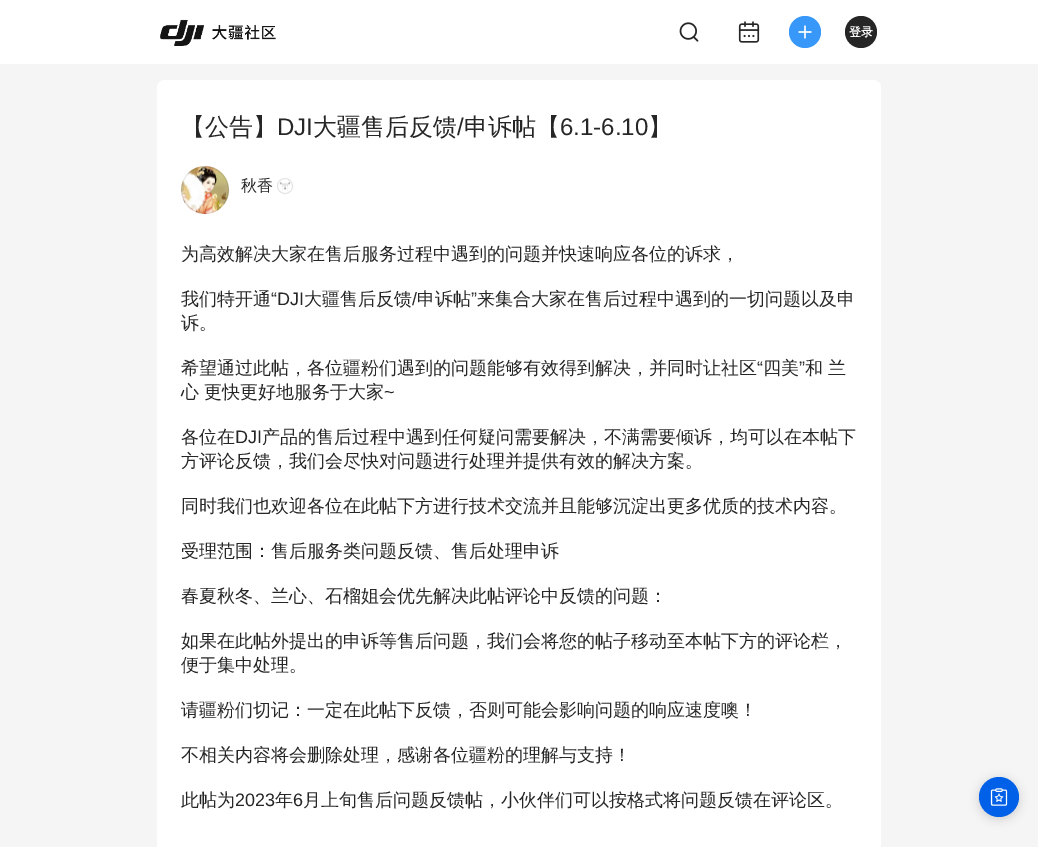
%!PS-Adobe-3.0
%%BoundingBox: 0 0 1038 847
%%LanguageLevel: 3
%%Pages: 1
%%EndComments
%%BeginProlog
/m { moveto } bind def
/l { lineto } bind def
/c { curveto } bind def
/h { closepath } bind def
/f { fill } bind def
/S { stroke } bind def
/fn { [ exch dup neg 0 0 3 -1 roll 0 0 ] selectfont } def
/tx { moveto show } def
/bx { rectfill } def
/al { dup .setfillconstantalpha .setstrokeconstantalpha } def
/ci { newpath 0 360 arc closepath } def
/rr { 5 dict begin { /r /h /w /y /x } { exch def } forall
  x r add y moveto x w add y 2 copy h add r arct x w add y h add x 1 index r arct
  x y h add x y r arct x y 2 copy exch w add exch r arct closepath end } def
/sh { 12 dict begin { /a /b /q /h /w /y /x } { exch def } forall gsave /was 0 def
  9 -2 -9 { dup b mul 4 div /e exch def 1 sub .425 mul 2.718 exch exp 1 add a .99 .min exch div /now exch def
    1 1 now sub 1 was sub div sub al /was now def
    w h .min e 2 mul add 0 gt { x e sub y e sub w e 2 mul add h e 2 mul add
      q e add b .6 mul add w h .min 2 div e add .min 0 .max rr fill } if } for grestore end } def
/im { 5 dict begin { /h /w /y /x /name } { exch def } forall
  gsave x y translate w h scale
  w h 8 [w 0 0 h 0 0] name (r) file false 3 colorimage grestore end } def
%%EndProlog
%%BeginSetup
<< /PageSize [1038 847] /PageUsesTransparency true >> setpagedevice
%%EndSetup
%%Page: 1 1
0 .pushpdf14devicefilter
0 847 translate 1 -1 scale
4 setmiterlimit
0.961 setgray
0 0 1038 847 bx
1 setgray
0 0 1038 64 bx
(image0.raw) 160 19 116 27 im
(image1.raw) 679 22 20 20 im
(image2.raw) 738 21 22 22 im
0.216 0.596 0.98 setrgbcolor
805 32 16 ci f
(image3.raw) 798 25 14 14 im
0.149 setgray
861 32 16 ci f
/WenQuanYiZenHei-Bold 12 fn
1 setgray
(登录) 849 36 tx
165 80 m 873 80 l 877.5 80 881 83.5 881 88 c 881 847 l 157 847 l 157 88 l 157 83.5 160.5 80 165 80 c h f
/WenQuanYiZenHei-Medium 24 fn
0.149 setgray
(【公告】) 181 135 tx
/LiberationSans-Regular 24 fn
(DJI) 277 135 tx
/WenQuanYiZenHei-Medium 24 fn
(大疆售后反馈) 313 135 tx
/LiberationSans-Regular 24 fn
(/) 457 135 tx
/WenQuanYiZenHei-Medium 24 fn
(申诉帖【) 464 135 tx
/LiberationSans-Regular 24 fn
(6.1-6.10) 560 135 tx
/WenQuanYiZenHei-Medium 24 fn
(】) 648 135 tx
(image4.raw) 181 166 48 48 im
0.08 al
0 setgray
205 190 23.5 ci S
/WenQuanYiZenHei-Medium 16 fn
1 al
0.149 setgray
(秋香) 241 191 tx
0.894 setgray
285 186 7.5 ci S
(image5.raw) 279 181 12 10 im
/WenQuanYiZenHei-Medium 18 fn
0.149 setgray
(为高效解决大家在售后服务过程中遇到的问题并快速响应各位的诉求，) 181 260 tx
(我们特开通) 181 305 tx
/LiberationSans-Regular 18 fn
(“DJI) 271 305 tx
/WenQuanYiZenHei-Medium 18 fn
(大疆售后反馈) 304 305 tx
/LiberationSans-Regular 18 fn
(/) 412 305 tx
/WenQuanYiZenHei-Medium 18 fn
(申诉帖) 417 305 tx
/LiberationSans-Regular 18 fn
(”) 471 305 tx
/WenQuanYiZenHei-Medium 18 fn
(来集合大家在售后过程中遇到的一切问题以及申) 477 305 tx
(诉。) 181 329 tx
(希望通过此帖，各位疆粉们遇到的问题能够有效得到解决，并同时让社区) 181 374 tx
/LiberationSans-Regular 18 fn
(“) 757 374 tx
/WenQuanYiZenHei-Medium 18 fn
(四美) 763 374 tx
/LiberationSans-Regular 18 fn
(”) 799 374 tx
/WenQuanYiZenHei-Medium 18 fn
(和 兰) 805 374 tx
(心 更快更好地服务于大家) 181 398 tx
/LiberationSans-Regular 18 fn
(~) 384 398 tx
/WenQuanYiZenHei-Medium 18 fn
(各位在) 181 443 tx
/LiberationSans-Regular 18 fn
(DJI) 235 443 tx
/WenQuanYiZenHei-Medium 18 fn
(产品的售后过程中遇到任何疑问需要解决，不满需要倾诉，均可以在本帖下) 262 443 tx
(方评论反馈，我们会尽快对问题进行处理并提供有效的解决方案。) 181 467 tx
(同时我们也欢迎各位在此帖下方进行技术交流并且能够沉淀出更多优质的技术内容。) 181 512 tx
(受理范围：售后服务类问题反馈、售后处理申诉) 181 557 tx
(春夏秋冬、兰心、石榴姐会优先解决此帖评论中反馈的问题：) 181 602 tx
(如果在此帖外提出的申诉等售后问题，我们会将您的帖子移动至本帖下方的评论栏，) 181 647 tx
(便于集中处理。) 181 671 tx
(请疆粉们切记：一定在此帖下反馈，否则可能会影响问题的响应速度噢！) 181 716 tx
(不相关内容将会删除处理，感谢各位疆粉的理解与支持！) 181 761 tx
(此帖为) 181 806 tx
/LiberationSans-Regular 18 fn
(2023) 235 806 tx
/WenQuanYiZenHei-Medium 18 fn
(年) 275 806 tx
/LiberationSans-Regular 18 fn
(6) 293 806 tx
/WenQuanYiZenHei-Medium 18 fn
(月上旬售后问题反馈帖，小伙伴们可以按格式将问题反馈在评论区。) 303 806 tx
0 setgray
979 779 40 40 20 5 0.16 sh
0 0.376 0.906 setrgbcolor
999 797 20 ci f
(image6.raw) 990 788 18 18 im
.poppdf14devicefilter showpage
%%EOF
